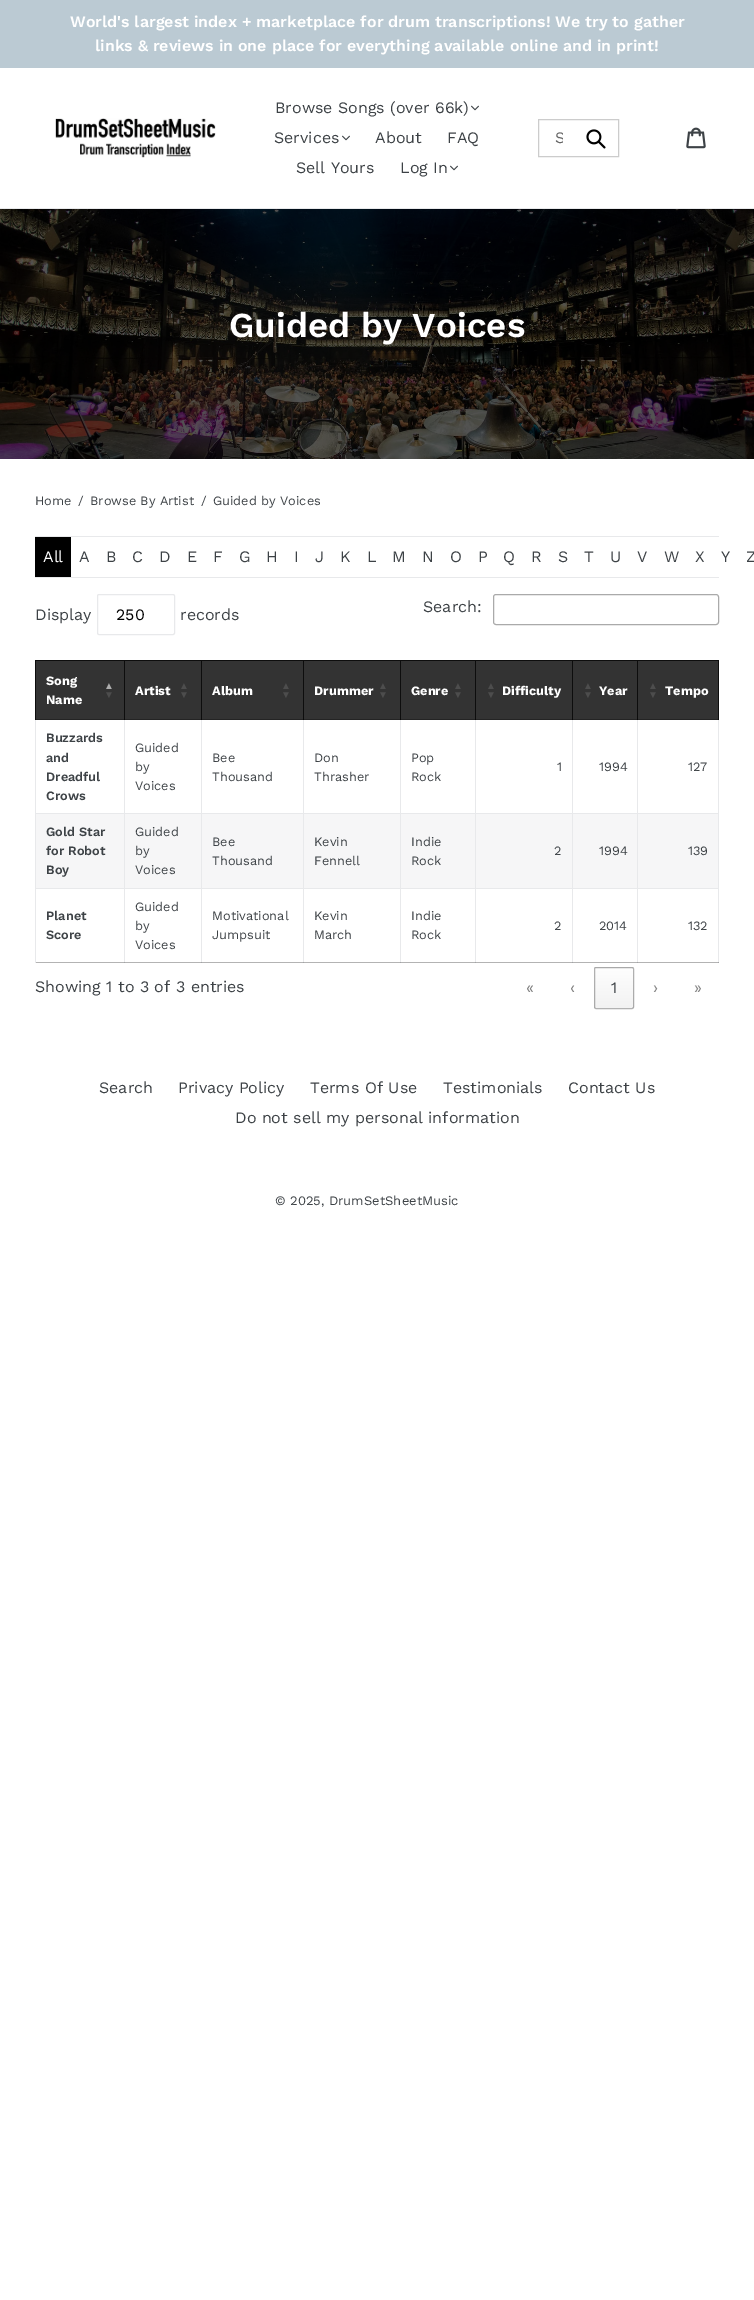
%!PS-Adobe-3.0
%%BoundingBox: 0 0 754 2300
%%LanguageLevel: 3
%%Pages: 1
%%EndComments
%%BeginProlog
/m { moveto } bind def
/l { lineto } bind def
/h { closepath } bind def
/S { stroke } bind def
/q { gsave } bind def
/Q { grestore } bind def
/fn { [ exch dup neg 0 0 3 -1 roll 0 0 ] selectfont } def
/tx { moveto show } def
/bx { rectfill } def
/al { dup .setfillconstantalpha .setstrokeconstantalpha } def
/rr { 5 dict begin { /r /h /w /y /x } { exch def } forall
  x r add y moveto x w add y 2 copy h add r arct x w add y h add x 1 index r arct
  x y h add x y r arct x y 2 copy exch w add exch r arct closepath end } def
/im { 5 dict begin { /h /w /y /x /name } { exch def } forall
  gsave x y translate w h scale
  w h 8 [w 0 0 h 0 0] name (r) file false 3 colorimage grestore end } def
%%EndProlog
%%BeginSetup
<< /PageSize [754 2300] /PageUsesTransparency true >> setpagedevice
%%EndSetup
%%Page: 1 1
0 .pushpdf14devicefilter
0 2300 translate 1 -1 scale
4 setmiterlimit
1 setgray
0 0 754 2300 bx
0.702 setgray
35 962 684 1 bx
0.733 0.792 0.827 setrgbcolor
0 0 754 68 bx
/WorkSans-SemiBold 16 fn
1 setgray
(World's largest index + marketplace for drum transcriptions! We try to gather) 70 27 tx
(links & reviews in one place for everything available online and in print!) 95 51 tx
0.91 0.914 0.922 setrgbcolor
0 208 754 1 bx
(image0.raw) 55 118 161 40 im
/WorkSans-Regular 16 fn
0.239 0.259 0.275 setrgbcolor
(Browse Songs \(over 66k\)) 275 113 tx
(image1.raw) 471 105 8 6 im
(Services) 274 143 tx
(image1.raw) 342 135 8 6 im
(About) 375 143 tx
(FAQ) 447 143 tx
(Sell Yours) 296 173 tx
(Log In) 400 173 tx
(image1.raw) 450 165 8 6 im
(image2.raw) 586 129 20 20 im
0.8 setgray
538.5 119.5 80 37 rectstroke
q
555 128 8 19 rectclip
0.4 setgray
(S) 555 143 tx
Q
(image3.raw) 686 127 20 22 im
0 setgray
0 209 754 250 bx
(image4.raw) 0 209 754 250 im
/WorkSans-SemiBold 35 fn
1 setgray
(Guided by Voices) 229 337 tx
/WorkSans-Regular 12.75 fn
0.239 0.259 0.275 setrgbcolor
(Home) 35 505 tx
(/) 78 505 tx
(Browse By Artist) 90 505 tx
(/) 201 505 tx
(Guided by Voices) 213 505 tx
0.91 0.914 0.922 setrgbcolor
35 536 684 1 bx
35 577 684 1 bx
0 setgray
35 537 36 40 bx
/WorkSans-Regular 16 fn
1 setgray
(All) 43 562 tx
0.239 0.259 0.275 setrgbcolor
(A) 79 562 tx
(B) 106 562 tx
(C) 132 562 tx
(D) 159 562 tx
(E) 187 562 tx
(F) 213 562 tx
(G) 239 562 tx
(H) 266 562 tx
(I) 294 562 tx
(J) 315 562 tx
(K) 340 562 tx
(L) 367 562 tx
(M) 392 562 tx
(N) 422 562 tx
(O) 450 562 tx
(P) 478 562 tx
(Q) 503 562 tx
(R) 531 562 tx
(S) 558 562 tx
(T) 584 562 tx
(U) 610 562 tx
(V) 637 562 tx
(W) 664 562 tx
(X) 695 562 tx
(Y) 721 562 tx
(Z) 746 562 tx
(Search:) 423 612 tx
0.667 setgray
493.5 594.5 225 30 2.5 rr S
0.239 0.259 0.275 setrgbcolor
(Display) 35 620 tx
0.91 0.914 0.922 setrgbcolor
97.5 594.5 77 40 1.5 rr S
0 setgray
(250) 116 620 tx
0.239 0.259 0.275 setrgbcolor
(records) 180 620 tx
0.2 setgray
36 661 682 58 bx
0.141 setgray
36 719 683 1 bx
0.051 setgray
637 660 82 1 bx
0.91 0.914 0.922 setrgbcolor
637 813 82 1 bx
0.965 0.965 0.969 setrgbcolor
36 814 682 74 bx
0.91 0.914 0.922 setrgbcolor
637 888 82 1 bx
637 888 1 75 bx
572 888 66 1 bx
637 813 1 76 bx
572 813 66 1 bx
637 719 1 95 bx
0.051 setgray
637 660 1 60 bx
572 660 66 1 bx
0.91 0.914 0.922 setrgbcolor
572 888 1 75 bx
475 888 98 1 bx
572 813 1 76 bx
475 813 98 1 bx
572 719 1 95 bx
0.051 setgray
572 660 1 60 bx
475 660 98 1 bx
0.91 0.914 0.922 setrgbcolor
475 888 1 75 bx
400 888 76 1 bx
475 813 1 76 bx
400 813 76 1 bx
475 719 1 95 bx
0.051 setgray
475 660 1 60 bx
400 660 76 1 bx
0.91 0.914 0.922 setrgbcolor
400 888 1 75 bx
303 888 98 1 bx
400 813 1 76 bx
303 813 98 1 bx
400 719 1 95 bx
0.051 setgray
400 660 1 60 bx
303 660 98 1 bx
0.91 0.914 0.922 setrgbcolor
303 888 1 75 bx
201 888 103 1 bx
303 813 1 76 bx
201 813 103 1 bx
303 719 1 95 bx
0.051 setgray
303 660 1 60 bx
201 660 103 1 bx
0.91 0.914 0.922 setrgbcolor
201 888 1 75 bx
124 888 78 1 bx
201 813 1 76 bx
124 813 78 1 bx
201 719 1 95 bx
0.051 setgray
201 660 1 60 bx
124 660 78 1 bx
0.91 0.914 0.922 setrgbcolor
124 888 1 75 bx
35 888 90 1 bx
124 813 1 76 bx
35 813 90 1 bx
124 719 1 95 bx
0.051 setgray
124 660 1 60 bx
35 660 90 1 bx
0.91 0.914 0.922 setrgbcolor
35 888 1 75 bx
35 719 1 170 bx
0.051 setgray
35 660 1 60 bx
/WorkSans-Bold 12.75 fn
1 setgray
(Song) 46 685 tx
(Name) 46 704 tx
/LiberationSans-Bold 10 fn
0.678 setgray
(▲) 104 689 tx
0.302 setgray
(▼) 104 698 tx
0.035 setgray
124 719 1 1 bx
/WorkSans-Bold 12.75 fn
1 setgray
(Artist) 135 695 tx
/LiberationSans-Bold 10 fn
0.302 setgray
(▲) 179 689 tx
(▼) 179 698 tx
0.035 setgray
201 719 1 1 bx
/WorkSans-Bold 12.75 fn
1 setgray
(Album) 212 695 tx
/LiberationSans-Bold 10 fn
0.302 setgray
(▲) 281 689 tx
(▼) 281 698 tx
0.035 setgray
303 719 1 1 bx
/WorkSans-Bold 12.75 fn
1 setgray
(Drummer) 314 695 tx
/LiberationSans-Bold 10 fn
0.302 setgray
(▲) 378 689 tx
(▼) 378 698 tx
0.035 setgray
400 719 1 1 bx
/WorkSans-Bold 12.75 fn
1 setgray
(Genre) 411 695 tx
/LiberationSans-Bold 10 fn
0.302 setgray
(▲) 453 689 tx
(▼) 453 698 tx
0.035 setgray
475 719 1 1 bx
0.302 setgray
(▲) 486 689 tx
(▼) 486 698 tx
/WorkSans-Bold 12.75 fn
1 setgray
(Difficulty) 502 695 tx
0.035 setgray
572 719 1 1 bx
/LiberationSans-Bold 10 fn
0.302 setgray
(▲) 583 689 tx
(▼) 583 698 tx
/WorkSans-Bold 12.75 fn
1 setgray
(Year) 599 695 tx
0.91 0.914 0.922 setrgbcolor
718 888 1 75 bx
718 719 1 170 bx
0.051 setgray
718 660 1 60 bx
0.035 setgray
718 719 1 1 bx
637 719 1 1 bx
/LiberationSans-Bold 10 fn
0.302 setgray
(▲) 648 689 tx
(▼) 648 698 tx
/WorkSans-Bold 12.75 fn
1 setgray
(Tempo) 665 695 tx
/WorkSans-SemiBold 12.75 fn
0.239 0.259 0.275 setrgbcolor
(Buzzards) 46 742 tx
(and) 46 762 tx
(Dreadful) 46 781 tx
(Crows) 46 800 tx
/WorkSans-Regular 12.75 fn
(Guided) 135 752 tx
(by) 135 771 tx
(Voices) 135 790 tx
(Bee) 212 762 tx
(Thousand) 212 781 tx
(Don) 314 762 tx
(Thrasher) 314 781 tx
(Pop) 411 762 tx
(Rock) 411 781 tx
(1) 557 771 tx
(1994) 599 771 tx
(127) 688 771 tx
/WorkSans-SemiBold 12.75 fn
(Gold Star) 46 836 tx
(for Robot) 46 855 tx
(Boy) 46 874 tx
/WorkSans-Regular 12.75 fn
(Guided) 135 836 tx
(by) 135 855 tx
(Voices) 135 874 tx
(Bee) 212 846 tx
(Thousand) 212 865 tx
(Kevin) 314 846 tx
(Fennell) 314 865 tx
(Indie) 411 846 tx
(Rock) 411 865 tx
(2) 554 855 tx
(1994) 599 855 tx
(139) 688 855 tx
/WorkSans-SemiBold 12.75 fn
(Planet) 46 920 tx
(Score) 46 939 tx
0.635 0.639 0.647 setrgbcolor
124 962 1 1 bx
/WorkSans-Regular 12.75 fn
0.239 0.259 0.275 setrgbcolor
(Guided) 135 911 tx
(by) 135 930 tx
(Voices) 135 949 tx
0.635 0.639 0.647 setrgbcolor
201 962 1 1 bx
0.239 0.259 0.275 setrgbcolor
(Motivational) 212 920 tx
(Jumpsuit) 212 939 tx
0.635 0.639 0.647 setrgbcolor
303 962 1 1 bx
0.239 0.259 0.275 setrgbcolor
(Kevin) 314 920 tx
(March) 314 939 tx
0.635 0.639 0.647 setrgbcolor
400 962 1 1 bx
0.239 0.259 0.275 setrgbcolor
(Indie) 411 920 tx
(Rock) 411 939 tx
0.635 0.639 0.647 setrgbcolor
475 962 1 1 bx
0.239 0.259 0.275 setrgbcolor
(2) 554 930 tx
0.635 0.639 0.647 setrgbcolor
572 962 1 1 bx
0.239 0.259 0.275 setrgbcolor
(2014) 599 930 tx
0.635 0.639 0.647 setrgbcolor
718 962 1 1 bx
637 962 1 1 bx
0.239 0.259 0.275 setrgbcolor
(132) 688 930 tx
/WorkSans-Regular 16 fn
(Showing 1 to 3 of 3 entries) 35 992 tx
0.502 setgray
(«) 526 993 tx
(‹) 570 993 tx
q
594 967 40 42 2 rr clip newpath
q 594 967 m 634 967 l 634 968 l 594 968 l h clip newpath
<< /ShadingType 2 /ColorSpace /DeviceRGB /Coords [614 928 614 968] /Extend [true true] /Function << /FunctionType 2 /Domain [0 1] /C0 [0.996 0.996 0.996] /C1 [0.949 0.949 0.949] /N 1 >> >> shfill Q
q 594 968 m 634 968 l 634 1008 l 594 1008 l h clip newpath
<< /ShadingType 2 /ColorSpace /DeviceRGB /Coords [614 968 614 1008] /Extend [true true] /Function << /FunctionType 2 /Domain [0 1] /C0 [0.996 0.996 0.996] /C1 [0.949 0.949 0.949] /N 1 >> >> shfill Q
Q
0.3 al
0 setgray
594.5 967.5 39 41 1.5 rr S
1 al
0.239 0.259 0.275 setrgbcolor
(1) 611 993 tx
0.502 setgray
(›) 653 993 tx
(») 694 993 tx
0.239 0.259 0.275 setrgbcolor
(Search) 99 1093 tx
(Privacy Policy) 178 1093 tx
(Terms Of Use) 310 1093 tx
(Testimonials) 443 1093 tx
(Contact Us) 568 1093 tx
(Do not sell my personal information) 235 1123 tx
/WorkSans-Regular 13 fn
(© 2025, DrumSetSheetMusic) 275 1205 tx
.poppdf14devicefilter showpage
%%EOF
